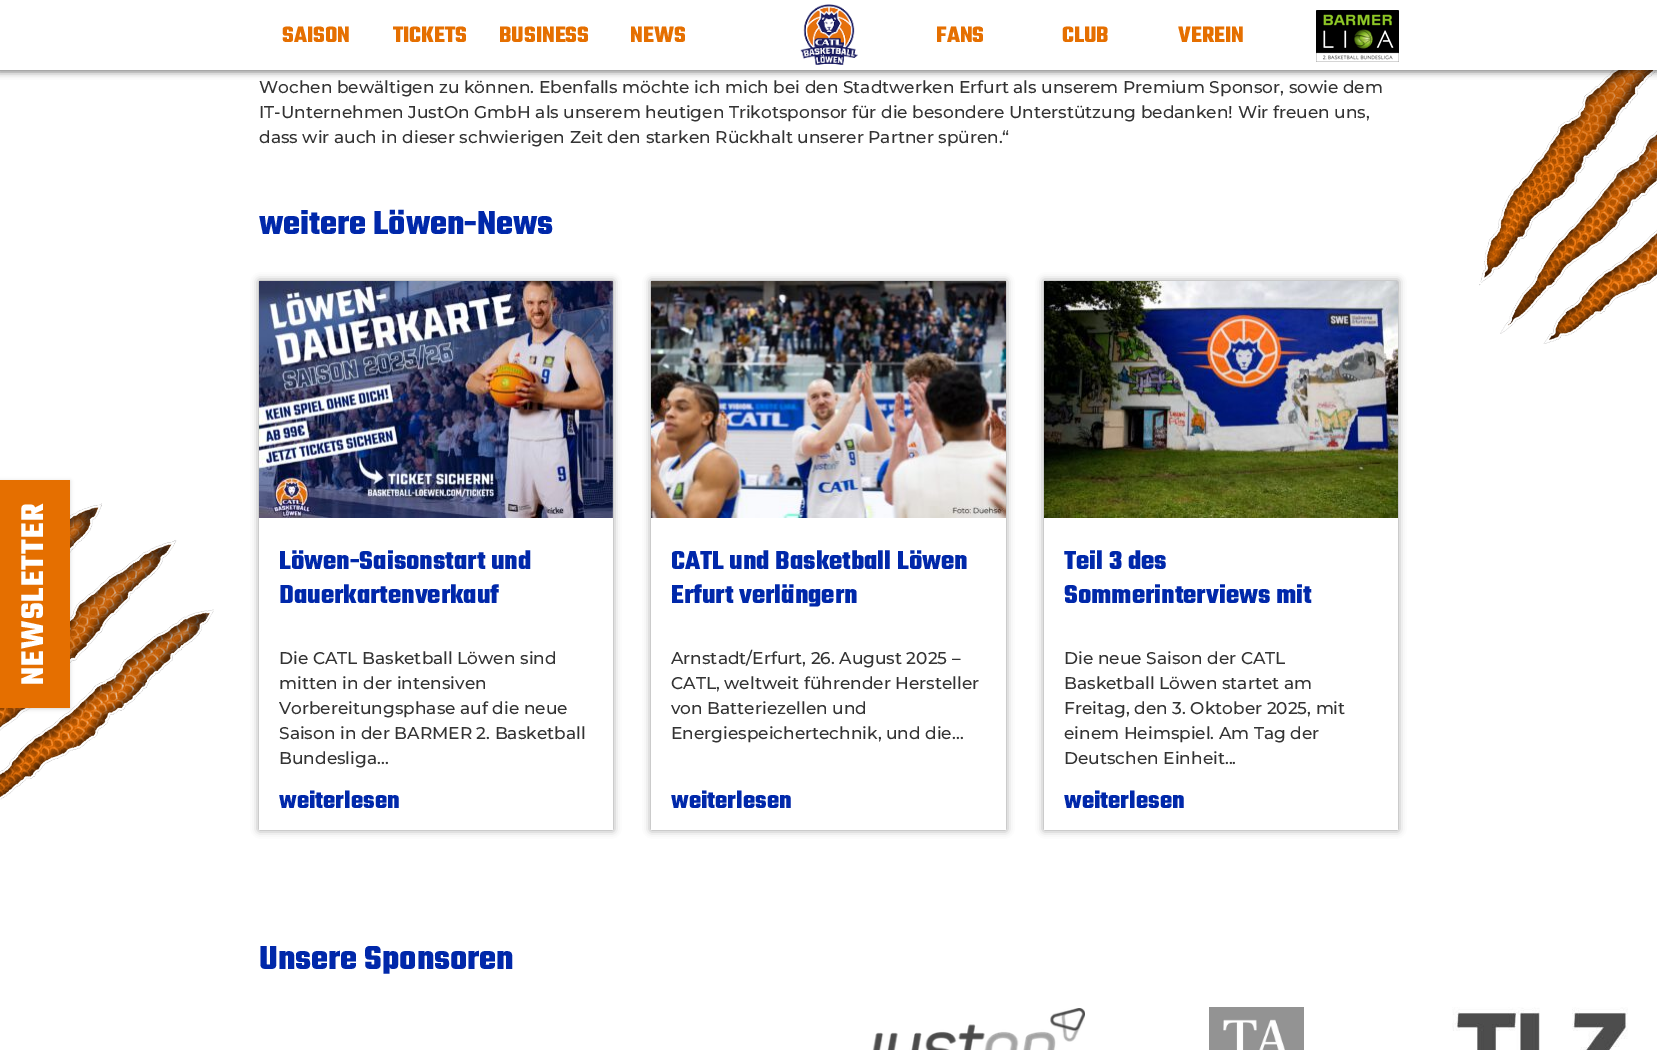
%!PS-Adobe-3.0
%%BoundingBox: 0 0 1657 1050
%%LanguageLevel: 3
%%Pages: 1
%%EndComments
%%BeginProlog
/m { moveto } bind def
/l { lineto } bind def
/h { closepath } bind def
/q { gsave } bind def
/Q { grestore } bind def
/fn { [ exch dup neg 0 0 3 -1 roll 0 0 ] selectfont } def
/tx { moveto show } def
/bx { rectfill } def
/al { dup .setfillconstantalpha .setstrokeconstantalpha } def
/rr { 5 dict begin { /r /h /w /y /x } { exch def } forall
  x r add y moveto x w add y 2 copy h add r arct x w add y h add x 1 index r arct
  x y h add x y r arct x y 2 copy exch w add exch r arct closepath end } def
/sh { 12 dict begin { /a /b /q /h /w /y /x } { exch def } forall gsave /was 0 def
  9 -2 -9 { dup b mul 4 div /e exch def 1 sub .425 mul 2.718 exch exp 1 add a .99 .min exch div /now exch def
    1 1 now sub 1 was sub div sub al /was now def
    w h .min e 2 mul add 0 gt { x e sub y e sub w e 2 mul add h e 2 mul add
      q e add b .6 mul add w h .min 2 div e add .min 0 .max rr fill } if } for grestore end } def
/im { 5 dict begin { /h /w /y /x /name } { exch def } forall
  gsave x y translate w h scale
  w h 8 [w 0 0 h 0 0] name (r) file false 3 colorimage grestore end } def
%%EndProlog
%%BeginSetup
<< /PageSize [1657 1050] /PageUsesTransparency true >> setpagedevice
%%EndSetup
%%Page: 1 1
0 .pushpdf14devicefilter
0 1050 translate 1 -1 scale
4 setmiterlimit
1 setgray
0 0 1657 1050 bx
(image6.raw) 1479 70 178 274 im
0 setgray
-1 -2 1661 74 0 3.5 0.5 sh
1 setgray
0 0 1657 70 bx
(image0.raw) 800 4 58 61 im
(image1.raw) 1316 10 83 52 im
/Teko-Bold 24 fn
0.898 0.435 0 setrgbcolor
(SAISON) 282 42 tx
(TICKETS) 393 42 tx
(BUSINESS) 499 42 tx
(NEWS) 630 42 tx
(FANS) 936 42 tx
(CLUB) 1062 42 tx
(VEREIN) 1178 42 tx
(image2.raw) 0 503 214 297 im
/Montserrat-Medium 17 fn
0.2 setgray
(Wochen bewältigen zu können. Ebenfalls möchte ich mich bei den Stadtwerken Erfurt als unserem Premium Sponsor, sowie dem) 259 93 tx
(IT-Unternehmen JustOn GmbH als unserem heutigen Trikotsponsor für die besondere Unterstützung bedanken! Wir freuen uns,) 259 118 tx
(dass wir auch in dieser schwierigen Zeit den starken Rückhalt unserer Partner spüren.“) 259 143 tx
/Teko-Bold 36 fn
0 0.157 0.667 setrgbcolor
(weitere Löwen-News) 259 234 tx
q
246 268 m 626 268 l 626 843 l 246 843 l h 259 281 m 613 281 l 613 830 l 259 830 l h eoclip newpath
0 setgray
259 281 354 549 0 4 0.41 sh
Q
(image3.raw) 259 281 354 237 im
/Teko-Bold 28 fn
(Löwen-Saisonstart und) 279 569 tx
(Dauerkartenverkauf) 279 603 tx
/Montserrat-Medium 17 fn
0.2 setgray
(Die CATL Basketball Löwen sind) 279 664 tx
(mitten in der intensiven) 279 689 tx
(Vorbereitungsphase auf die neue) 279 714 tx
(Saison in der BARMER 2. Basketball) 279 739 tx
(Bundesliga...) 279 764 tx
/Teko-Bold 26 fn
0 0.157 0.667 setrgbcolor
(weiterlesen) 279 808 tx
q
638 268 m 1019 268 l 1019 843 l 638 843 l h 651 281 m 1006 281 l 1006 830 l 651 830 l h eoclip newpath
0 setgray
651 281 355 549 0 4 0.41 sh
Q
(image4.raw) 651 281 355 237 im
/Teko-Bold 28 fn
(CATL und Basketball Löwen) 671 569 tx
(Erfurt verlängern) 671 603 tx
/Montserrat-Medium 17 fn
0.2 setgray
(Arnstadt/Erfurt, 26. August 2025 –) 671 664 tx
(CATL, weltweit führender Hersteller) 671 689 tx
(von Batteriezellen und) 671 714 tx
(Energiespeichertechnik, und die...) 671 739 tx
/Teko-Bold 26 fn
0 0.157 0.667 setrgbcolor
(weiterlesen) 671 808 tx
q
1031 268 m 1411 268 l 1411 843 l 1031 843 l h 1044 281 m 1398 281 l 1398 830 l 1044 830 l h eoclip newpath
0 setgray
1044 281 354 549 0 4 0.41 sh
Q
(image5.raw) 1044 281 354 237 im
/Teko-Bold 28 fn
(Teil 3 des) 1064 569 tx
(Sommerinterviews mit) 1064 603 tx
/Montserrat-Medium 17 fn
0.2 setgray
(Die neue Saison der CATL) 1064 664 tx
(Basketball Löwen startet am) 1064 689 tx
(Freitag, den 3. Oktober 2025, mit) 1064 714 tx
(einem Heimspiel. Am Tag der) 1064 739 tx
(Deutschen Einheit...) 1064 764 tx
/Teko-Bold 26 fn
0 0.157 0.667 setrgbcolor
(weiterlesen) 1064 808 tx
0 setgray
0 481 70 228 0 2 0.16 sh
0.898 0.435 0 setrgbcolor
0 480 70 228 bx
/Teko-Bold 34 fn
1 setgray
q 43 685 translate -90 rotate 0 0 m 1.25 0 (NEWSLETTER) ashow Q
/Teko-Bold 36 fn
0 0.157 0.667 setrgbcolor
(Unsere Sponsoren) 259 969 tx
(image7.raw) 872 1008 213 42 im
(image8.raw) 1209 1007 95 43 im
(image9.raw) 1452 1007 176 43 im
.poppdf14devicefilter showpage
%%EOF
